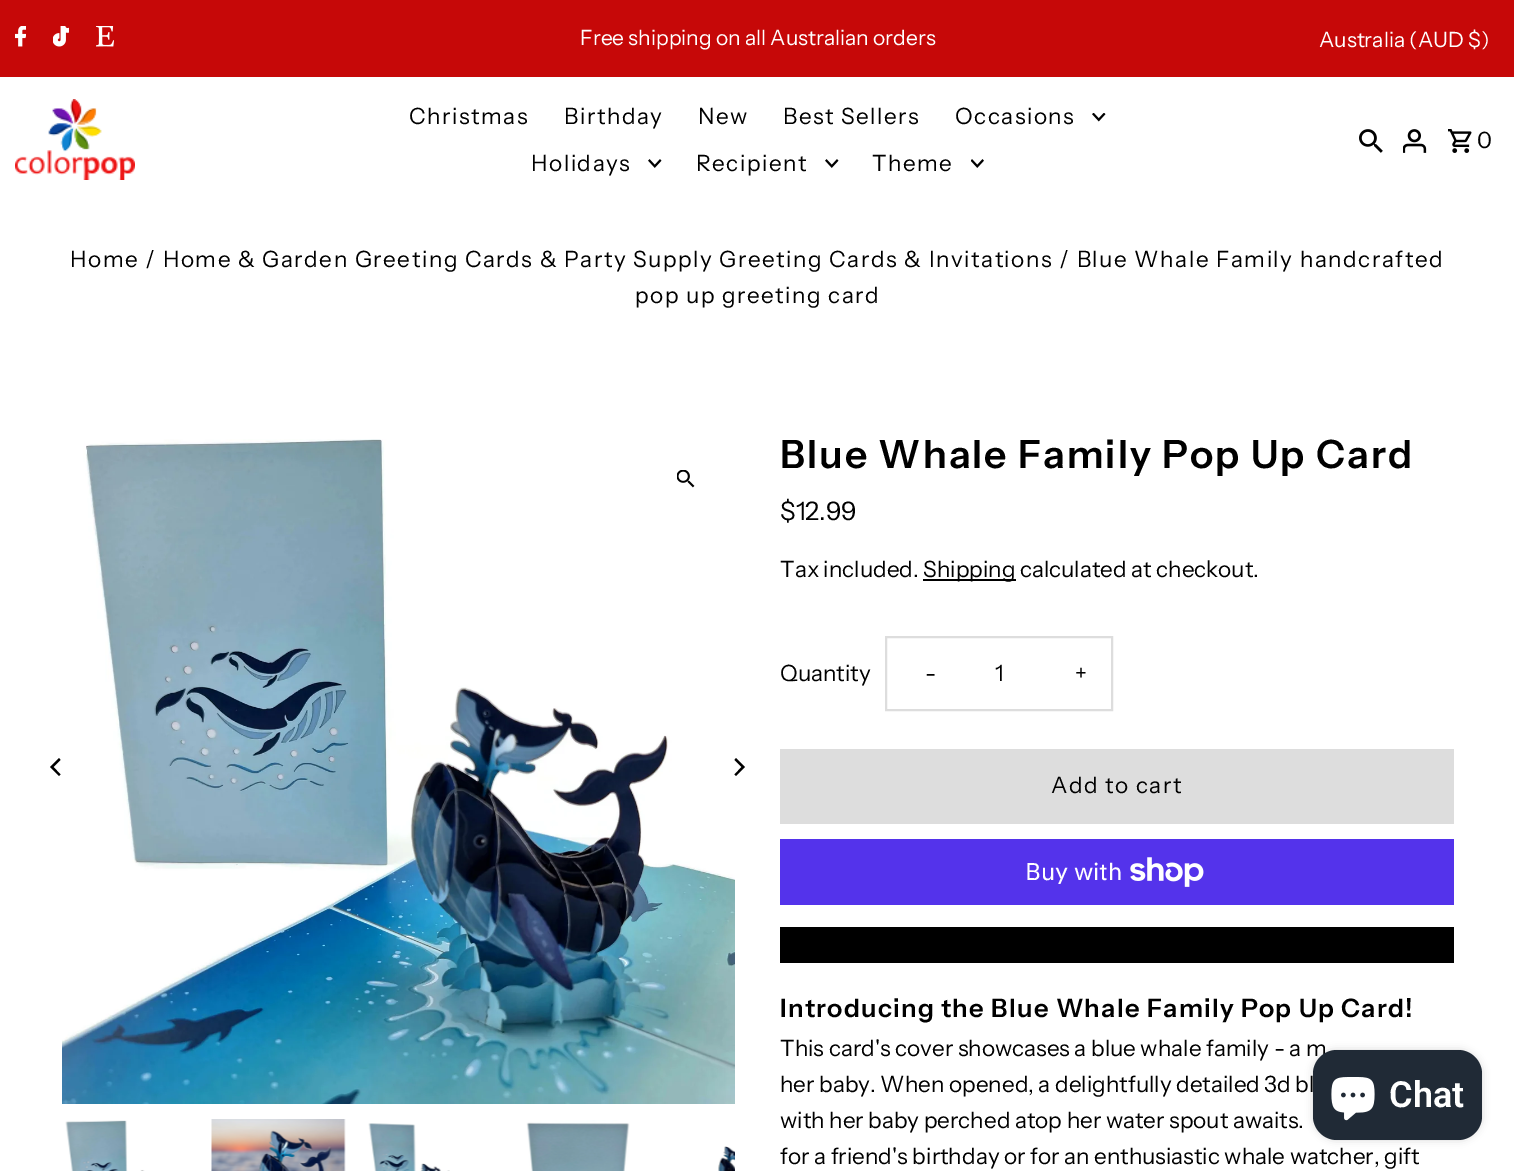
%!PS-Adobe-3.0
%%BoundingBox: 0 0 1514 1171
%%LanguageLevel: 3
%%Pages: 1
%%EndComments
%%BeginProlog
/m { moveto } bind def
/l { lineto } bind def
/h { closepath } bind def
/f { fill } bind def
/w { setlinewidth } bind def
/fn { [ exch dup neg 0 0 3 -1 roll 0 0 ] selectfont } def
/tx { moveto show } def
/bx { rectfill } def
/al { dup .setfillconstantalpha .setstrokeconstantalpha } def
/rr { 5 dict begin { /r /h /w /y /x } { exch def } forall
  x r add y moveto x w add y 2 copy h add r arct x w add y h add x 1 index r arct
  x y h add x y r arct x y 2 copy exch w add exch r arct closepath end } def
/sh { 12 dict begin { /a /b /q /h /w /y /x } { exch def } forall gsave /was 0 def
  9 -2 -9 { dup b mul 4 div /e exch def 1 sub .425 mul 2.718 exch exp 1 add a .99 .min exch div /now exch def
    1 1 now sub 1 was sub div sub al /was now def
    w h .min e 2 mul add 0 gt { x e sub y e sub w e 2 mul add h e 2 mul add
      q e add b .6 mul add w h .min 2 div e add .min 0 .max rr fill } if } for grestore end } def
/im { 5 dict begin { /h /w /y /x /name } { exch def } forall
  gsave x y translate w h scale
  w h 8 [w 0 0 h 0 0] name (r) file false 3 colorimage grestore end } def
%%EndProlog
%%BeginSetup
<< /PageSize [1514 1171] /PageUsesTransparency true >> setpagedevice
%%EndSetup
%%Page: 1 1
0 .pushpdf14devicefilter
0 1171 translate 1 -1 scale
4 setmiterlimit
1 setgray
0 0 1514 1171 bx
0.776 0.031 0.031 setrgbcolor
0 0 1514 77 bx
(image0.raw) 15 26 11 21 im
(image1.raw) 53 26 16 21 im
(image2.raw) 96 26 18 21 im
/InstrumentSans-Regular 21 fn
1 setgray
(Free shipping on all Australian orders) 580 45 tx
(Australia \(AUD $\)) 1319 47 tx
(image3.raw) 15 99 120 81 im
/InstrumentSans-Regular 22.5 fn
0 setgray
409 124 m 1.5 0 (Christmas) ashow
564 124 m 1.5 0 (Birthday) ashow
698 124 m 1.5 0 (New) ashow
783 124 m 1.5 0 (Best Sellers) ashow
955 124 m 1.5 0 (Occasions) ashow
(image4.raw) 1092 113 14 9 im
531 171 m 1.5 0 (Holidays) ashow
(image5.raw) 648 159 14 9 im
696 171 m 1.5 0 (Recipient) ashow
(image5.raw) 825 159 14 9 im
872 171 m 1.5 0 (Theme) ashow
(image6.raw) 971 159 13 9 im
(image7.raw) 1359 129 24 24 im
(image8.raw) 1403 129 24 24 im
(image9.raw) 1448 129 24 24 im
1477 148 m 1.5 0 (0) ashow
70 267 m 1.5 0 (Home / Home & Garden Greeting Cards & Party Supply Greeting Cards & Invitations / Blue Whale Family handcrafted) ashow
635 303 m 1.5 0 (pop up greeting card) ashow
50 767 m 59 776 l 60.5 774.5 l 53.5 767 l 60.5 760 l 59 758 l h f
(image10.raw) 62 439 673 665 im
(image11.raw) 677 470 18 18 im
745 767 m 736 758 l 734.5 760 l 741.5 767 l 734.5 774.5 l 736 776 l h f
(image12.raw) 65 1120 80 51 im
(image13.raw) 211 1119 135 52 im
(image14.raw) 368 1123 82 48 im
(image15.raw) 526 1120 104 51 im
(image16.raw) 718 1146 17 25 im
/InstrumentSans-SemiBold 39 fn
780 468 m 1.95 0 (Blue Whale Family Pop Up Card) ashow
/InstrumentSans-Regular 25.5 fn
($12.99) 780 520 tx
/InstrumentSans-Regular 22.5 fn
(Tax included.) 780 577 tx
923 579 93 2 bx
(Shipping calculated at checkout.) 923 577 tx
(Quantity) 780 681 tx
0.867 setgray
2 w
886 637 226 73 rectstroke
0 setgray
925 681 m 1.5 0 (-) ashow
(1) 995 681 tx
1075 681 m 1.5 0 (+) ashow
0.867 setgray
780 749 674 75 bx
0 setgray
1051 793 m 1.5 0 (Add to cart) ashow
0.329 0.2 0.922 setrgbcolor
780 839 674 66 bx
/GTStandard-Regular 24 fn
1 setgray
(Buy with) 1025 880 tx
(image17.raw) 1130 857 74 30 im
0 setgray
780 927 674 36 bx
/InstrumentSans-SemiBold 25.5 fn
780 1017 m 1.25 0 (Introducing the Blue Whale Family Pop Up Card!) ashow
/InstrumentSans-Regular 22.5 fn
(This card's cover showcases a blue whale family - a m) 780 1056 tx
(her baby. When opened, a delightfully detailed 3d bl) 780 1092 tx
(with her baby perched atop her water spout awaits.) 780 1128 tx
(for a friend's birthday or for an enthusiastic whale watcher, gift) 780 1164 tx
1313 1050 169 90 24 4 0.15 sh
0.125 0.165 0.212 setrgbcolor
1313 1050 169 90 24 rr f
(image18.raw) 1331 1077 44 44 im
/Roboto-SemiBold 36 fn
1 setgray
(Chat) 1389 1107 tx
.poppdf14devicefilter showpage
%%EOF
